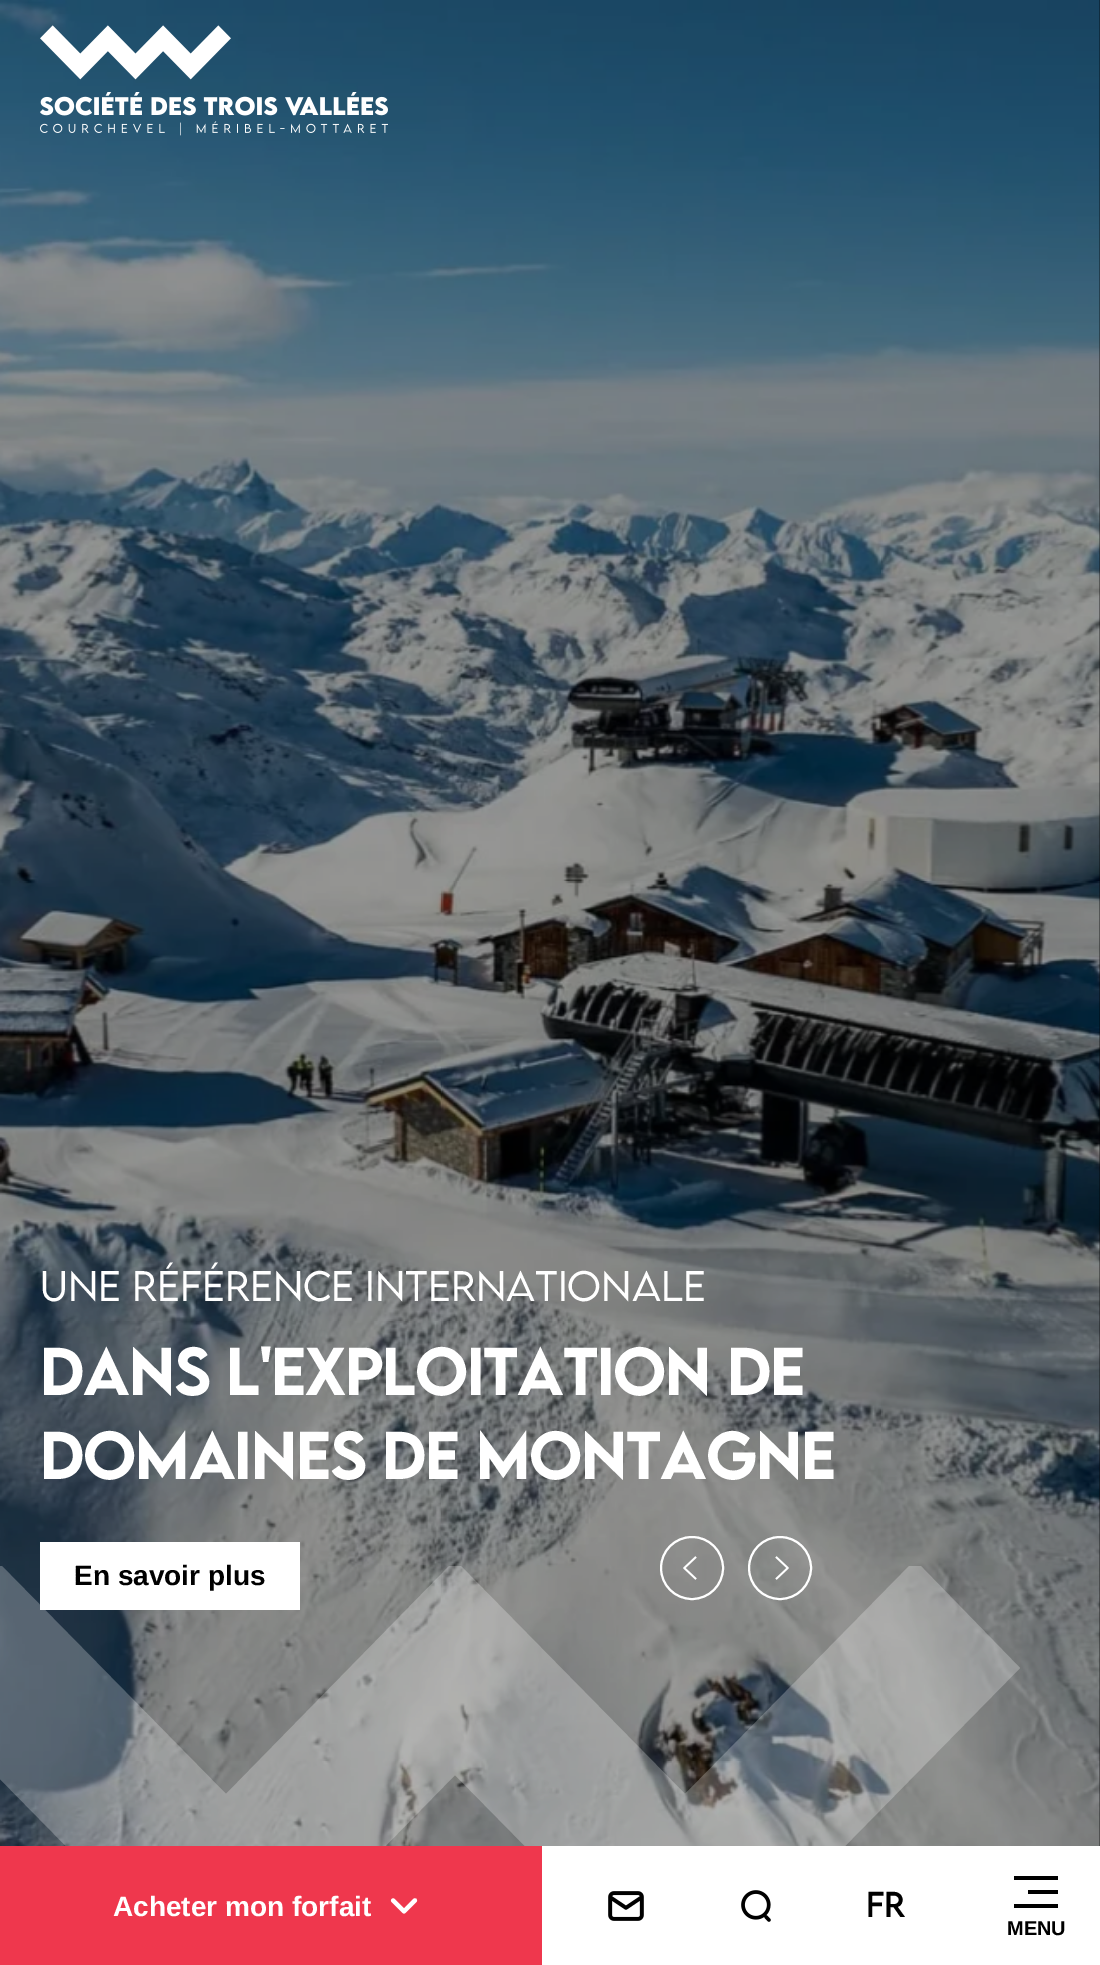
%!PS-Adobe-3.0
%%BoundingBox: 0 0 1100 1965
%%LanguageLevel: 3
%%Pages: 1
%%EndComments
%%BeginProlog
/m { moveto } bind def
/l { lineto } bind def
/h { closepath } bind def
/f { fill } bind def
/S { stroke } bind def
/q { gsave } bind def
/Q { grestore } bind def
/w { setlinewidth } bind def
/fn { [ exch dup neg 0 0 3 -1 roll 0 0 ] selectfont } def
/tx { moveto show } def
/bx { rectfill } def
/al { dup .setfillconstantalpha .setstrokeconstantalpha } def
/ci { newpath 0 360 arc closepath } def
/im { 5 dict begin { /h /w /y /x /name } { exch def } forall
  gsave x y translate w h scale
  w h 8 [w 0 0 h 0 0] name (r) file false 3 colorimage grestore end } def
%%EndProlog
%%BeginSetup
<< /PageSize [1100 1965] /PageUsesTransparency true >> setpagedevice
%%EndSetup
%%Page: 1 1
0 .pushpdf14devicefilter
0 1965 translate 1 -1 scale
4 setmiterlimit
0 setgray
0 0 1100 1965 bx
(image1.raw) 0 0 1100 1846 im
(image0.raw) 40 25 348 111 im
/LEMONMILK-Light 38 fn
1 setgray
(UNE RÉFÉRENCE INTERNATIONALE) 40 1301 tx
/LEMONMILK-Medium 60 fn
40 1395 m -1.2 0 (DANS L'EXPLOITATION DE) ashow
40 1479 m -1.2 0 (DOMAINES DE MONTAGNE) ashow
q
0 1566 1020 304 rectclip
0.25 al
1020 1668 m 915 1560 l 685 1794 l 455 1560 l 226 1794 l -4 1560 l -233 1794 l -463 1560 l -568 1668 l -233 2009 l -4 1775 l 226 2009 l 455 1775 l 685 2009 l h f
Q
40 1542 260 68 bx
/LiberationSans-Bold 28 fn
0 setgray
(En savoir plus) 74 1585 tx
1 setgray
2 w
692 1568 31 ci S
(image2.raw) 683 1556 14 24 im
780 1568 31 ci S
(image3.raw) 775 1556 14 24 im
542 1846 558 119 bx
0.937 0.216 0.302 setrgbcolor
0 1846 542 119 bx
1 setgray
(Acheter mon forfait) 113 1916 tx
(image4.raw) 390 1898 28 16 im
(image5.raw) 608 1891 36 30 im
(image6.raw) 741 1890 30 32 im
/LEMONMILK-Regular 32 fn
0 setgray
(FR) 866 1917 tx
1014 1876 44 4 bx
1028 1890 30 4 bx
1014 1904 44 4 bx
/LiberationSans-Bold 20 fn
(MENU) 1007 1935 tx
.poppdf14devicefilter showpage
%%EOF
